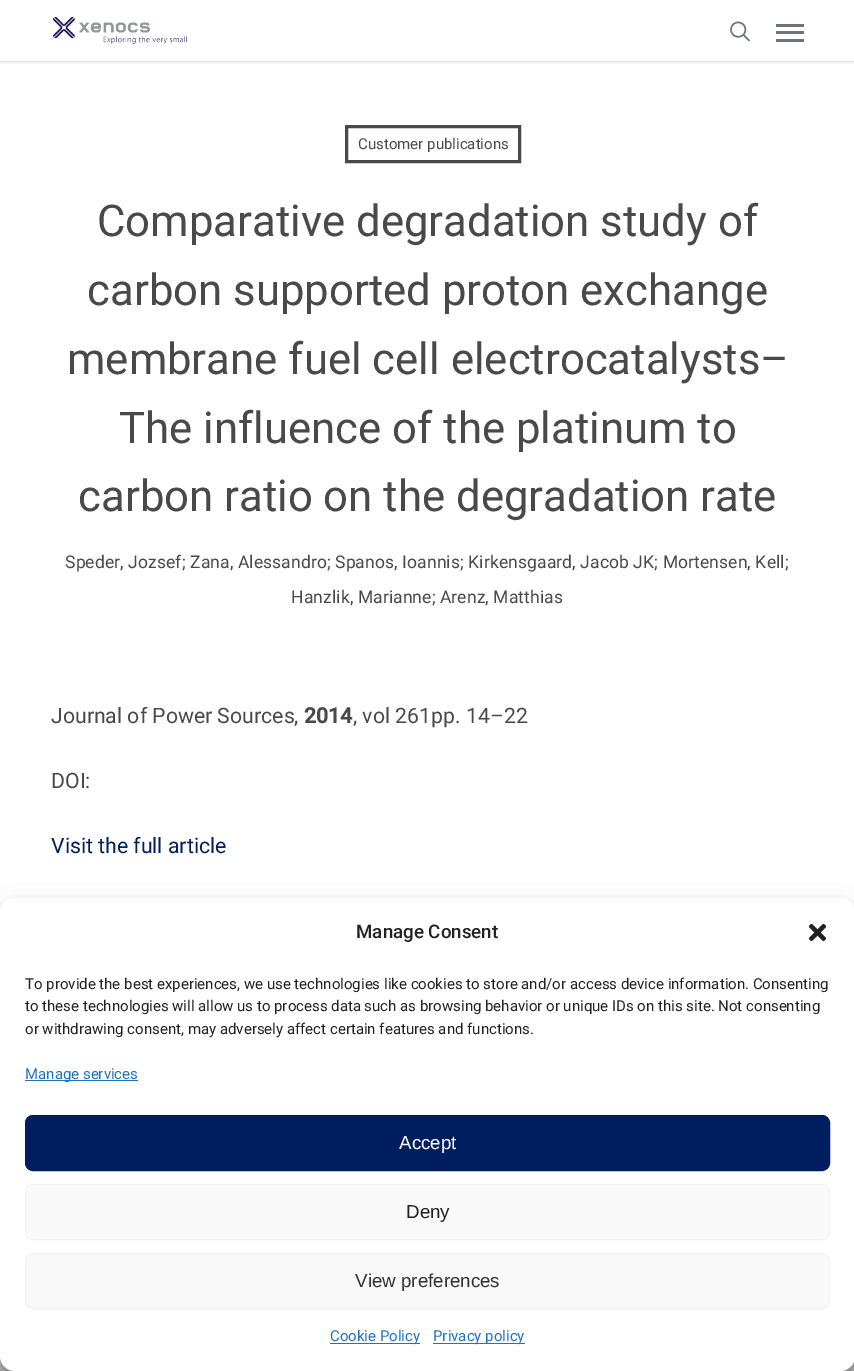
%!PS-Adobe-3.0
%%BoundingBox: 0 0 854 1371
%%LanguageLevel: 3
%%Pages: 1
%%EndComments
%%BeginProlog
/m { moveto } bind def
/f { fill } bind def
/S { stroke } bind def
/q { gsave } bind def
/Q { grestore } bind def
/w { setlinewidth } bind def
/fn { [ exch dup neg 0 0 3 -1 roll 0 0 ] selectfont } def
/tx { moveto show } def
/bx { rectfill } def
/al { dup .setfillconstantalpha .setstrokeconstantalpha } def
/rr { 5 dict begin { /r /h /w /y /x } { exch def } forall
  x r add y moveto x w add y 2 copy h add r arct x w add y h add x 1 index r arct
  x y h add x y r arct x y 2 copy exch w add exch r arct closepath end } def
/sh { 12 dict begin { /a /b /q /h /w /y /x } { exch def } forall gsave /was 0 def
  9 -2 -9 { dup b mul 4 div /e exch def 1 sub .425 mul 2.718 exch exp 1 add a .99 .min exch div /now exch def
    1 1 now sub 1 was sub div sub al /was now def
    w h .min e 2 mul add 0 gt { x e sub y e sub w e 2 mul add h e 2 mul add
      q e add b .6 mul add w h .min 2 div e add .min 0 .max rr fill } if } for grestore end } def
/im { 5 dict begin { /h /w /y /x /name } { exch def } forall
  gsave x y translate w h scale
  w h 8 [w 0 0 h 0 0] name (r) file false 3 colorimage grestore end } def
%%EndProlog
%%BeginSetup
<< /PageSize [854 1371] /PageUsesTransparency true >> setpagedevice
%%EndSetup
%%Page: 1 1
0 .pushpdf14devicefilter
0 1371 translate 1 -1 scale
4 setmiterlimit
1 setgray
0 0 854 1371 bx
q
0 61 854 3 rectclip
0 setgray
0 0 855 61 0 2 0.22 sh
Q
(image0.raw) 53 17 134 27 im
(image1.raw) 730 21 20 21 im
0.439 0.451 0.467 setrgbcolor
776 24 28 3 bx
776 39 28 3 bx
776 31 28 3 bx
0.286 setgray
3 w
346.5 126.5 173 35 rectstroke
/Roboto-Regular 15 fn
(Customer publications) 358 149 tx
/Roboto-Regular 43.75 fn
(Comparative degradation study of) 97 236 tx
(carbon supported proton exchange) 87 305 tx
(membrane fuel cell electrocatalysts–) 67 374 tx
(The influence of the platinum to) 119 443 tx
(carbon ratio on the degradation rate) 78 511 tx
/Roboto-Regular 17.5 fn
65 568 m 0.12 0 (Speder, Jozsef; Zana, Alessandro; Spanos, Ioannis; Kirkensgaard, Jacob JK; Mortensen, Kell;) ashow
291 603 m 0.12 0 (Hanzlik, Marianne; Arenz, Matthias) ashow
/Roboto-Regular 21.25 fn
(Journal of Power Sources,) 51 723 tx
/Roboto-Bold 21.25 fn
(2014) 304 723 tx
/Roboto-Regular 21.25 fn
(, vol 261pp. 14–22) 353 723 tx
(DOI:) 51 788 tx
0 0.118 0.376 setrgbcolor
(Visit the full article) 51 853 tx
0.776 setgray
0 1356 854 15 bx
0 setgray
0 905 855 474 15 4 0.23 sh
0 910 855 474 15 12.5 0.19 sh
1 setgray
0 898 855 473 15 rr f
/Roboto-Medium 18.75 fn
0.133 setgray
(Manage Consent) 356 938 tx
(image2.raw) 808 923 19 19 im
/Roboto-Regular 15 fn
(To provide the best experiences, we use technologies like cookies to store and/or access device information. Consenting) 25 989 tx
(to these technologies will allow us to process data such as browsing behavior or unique IDs on this site. Not consenting) 25 1011 tx
(or withdrawing consent, may adversely affect certain features and functions.) 25 1034 tx
0.118 0.451 0.745 setrgbcolor
25 1080 113 1 bx
(Manage services) 25 1079 tx
0 0.118 0.376 setrgbcolor
25.5 1115.5 804 55 7.5 rr q f Q
1 w
S
/LiberationSans-Regular 18.75 fn
1 setgray
(Accept) 399 1149 tx
0.976 setgray
25.5 1184.5 804 55 7.5 rr q f Q
0.949 setgray
S
0.133 setgray
(Deny) 406 1218 tx
0.976 setgray
25.5 1253.5 804 55 7.5 rr q f Q
0.949 setgray
S
0.2 setgray
(View preferences) 355 1287 tx
0.118 0.451 0.745 setrgbcolor
330 1343 90 1 bx
/Roboto-Regular 15 fn
(Cookie Policy) 330 1341 tx
433 1343 92 1 bx
(Privacy policy) 433 1341 tx
.poppdf14devicefilter showpage
%%EOF
